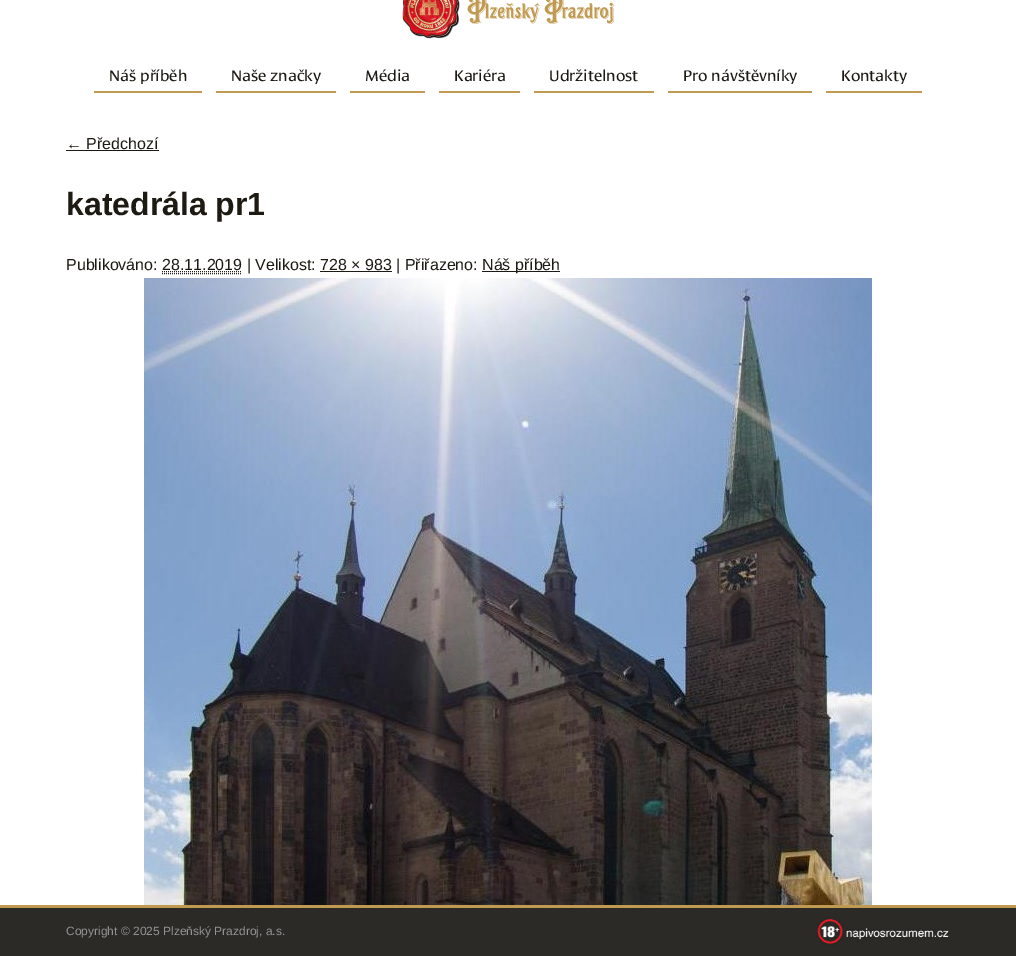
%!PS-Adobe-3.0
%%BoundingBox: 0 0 1016 956
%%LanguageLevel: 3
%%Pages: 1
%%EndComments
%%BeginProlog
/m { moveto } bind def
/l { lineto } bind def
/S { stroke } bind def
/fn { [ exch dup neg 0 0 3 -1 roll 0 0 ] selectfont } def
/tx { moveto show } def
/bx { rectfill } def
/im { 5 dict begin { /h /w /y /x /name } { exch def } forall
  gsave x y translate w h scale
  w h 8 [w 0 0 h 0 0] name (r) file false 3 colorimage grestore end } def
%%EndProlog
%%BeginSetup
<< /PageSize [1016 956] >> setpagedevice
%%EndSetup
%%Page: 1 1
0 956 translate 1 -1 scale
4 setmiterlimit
1 setgray
0 0 1016 956 bx
(image0.raw) 402 0 212 39 im
0.753 0.604 0.318 setrgbcolor
94 91 108 2 bx
/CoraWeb-Regular 16 fn
0.114 0.102 0.075 setrgbcolor
(Náš příběh) 109 81 tx
0.753 0.604 0.318 setrgbcolor
216 91 120 2 bx
0.114 0.102 0.075 setrgbcolor
(Naše značky) 231 81 tx
0.753 0.604 0.318 setrgbcolor
350 91 75 2 bx
0.114 0.102 0.075 setrgbcolor
(Média) 365 81 tx
0.753 0.604 0.318 setrgbcolor
439 91 81 2 bx
0.114 0.102 0.075 setrgbcolor
(Kariéra) 454 81 tx
0.753 0.604 0.318 setrgbcolor
534 91 120 2 bx
0.114 0.102 0.075 setrgbcolor
(Udržitelnost) 549 81 tx
0.753 0.604 0.318 setrgbcolor
668 91 144 2 bx
0.114 0.102 0.075 setrgbcolor
(Pro návštěvníky) 683 81 tx
0.753 0.604 0.318 setrgbcolor
826 91 96 2 bx
0.114 0.102 0.075 setrgbcolor
(Kontakty) 841 81 tx
/LiberationSans-Regular 16 fn
(← Předchozí) 66 149 tx
66 150 93 1 bx
/LiberationSans-Bold 32 fn
(katedrála pr1) 66 215 tx
/LiberationSans-Regular 16 fn
(Publikováno: 28.11.2019 | Velikost: 728 × 983 | Přiřazeno:) 66 270 tx
482 271 78 1 bx
(Náš příběh) 482 270 tx
[1 1] 0 setdash
162 271.5 m 242 271.5 l S
320 271 72 1 bx
162 273.5 m 242 273.5 l S
(image1.raw) 144 278 728 627 im
0.173 0.165 0.153 setrgbcolor
0 908 1016 48 bx
0.753 0.604 0.318 setrgbcolor
0 905 1016 3 bx
/LiberationSans-Regular 12 fn
0.576 setgray
(Copyright © 2025 Plzeňský Prazdroj, a.s.) 66 935 tx
(image2.raw) 816 918 134 28 im
showpage
%%EOF
